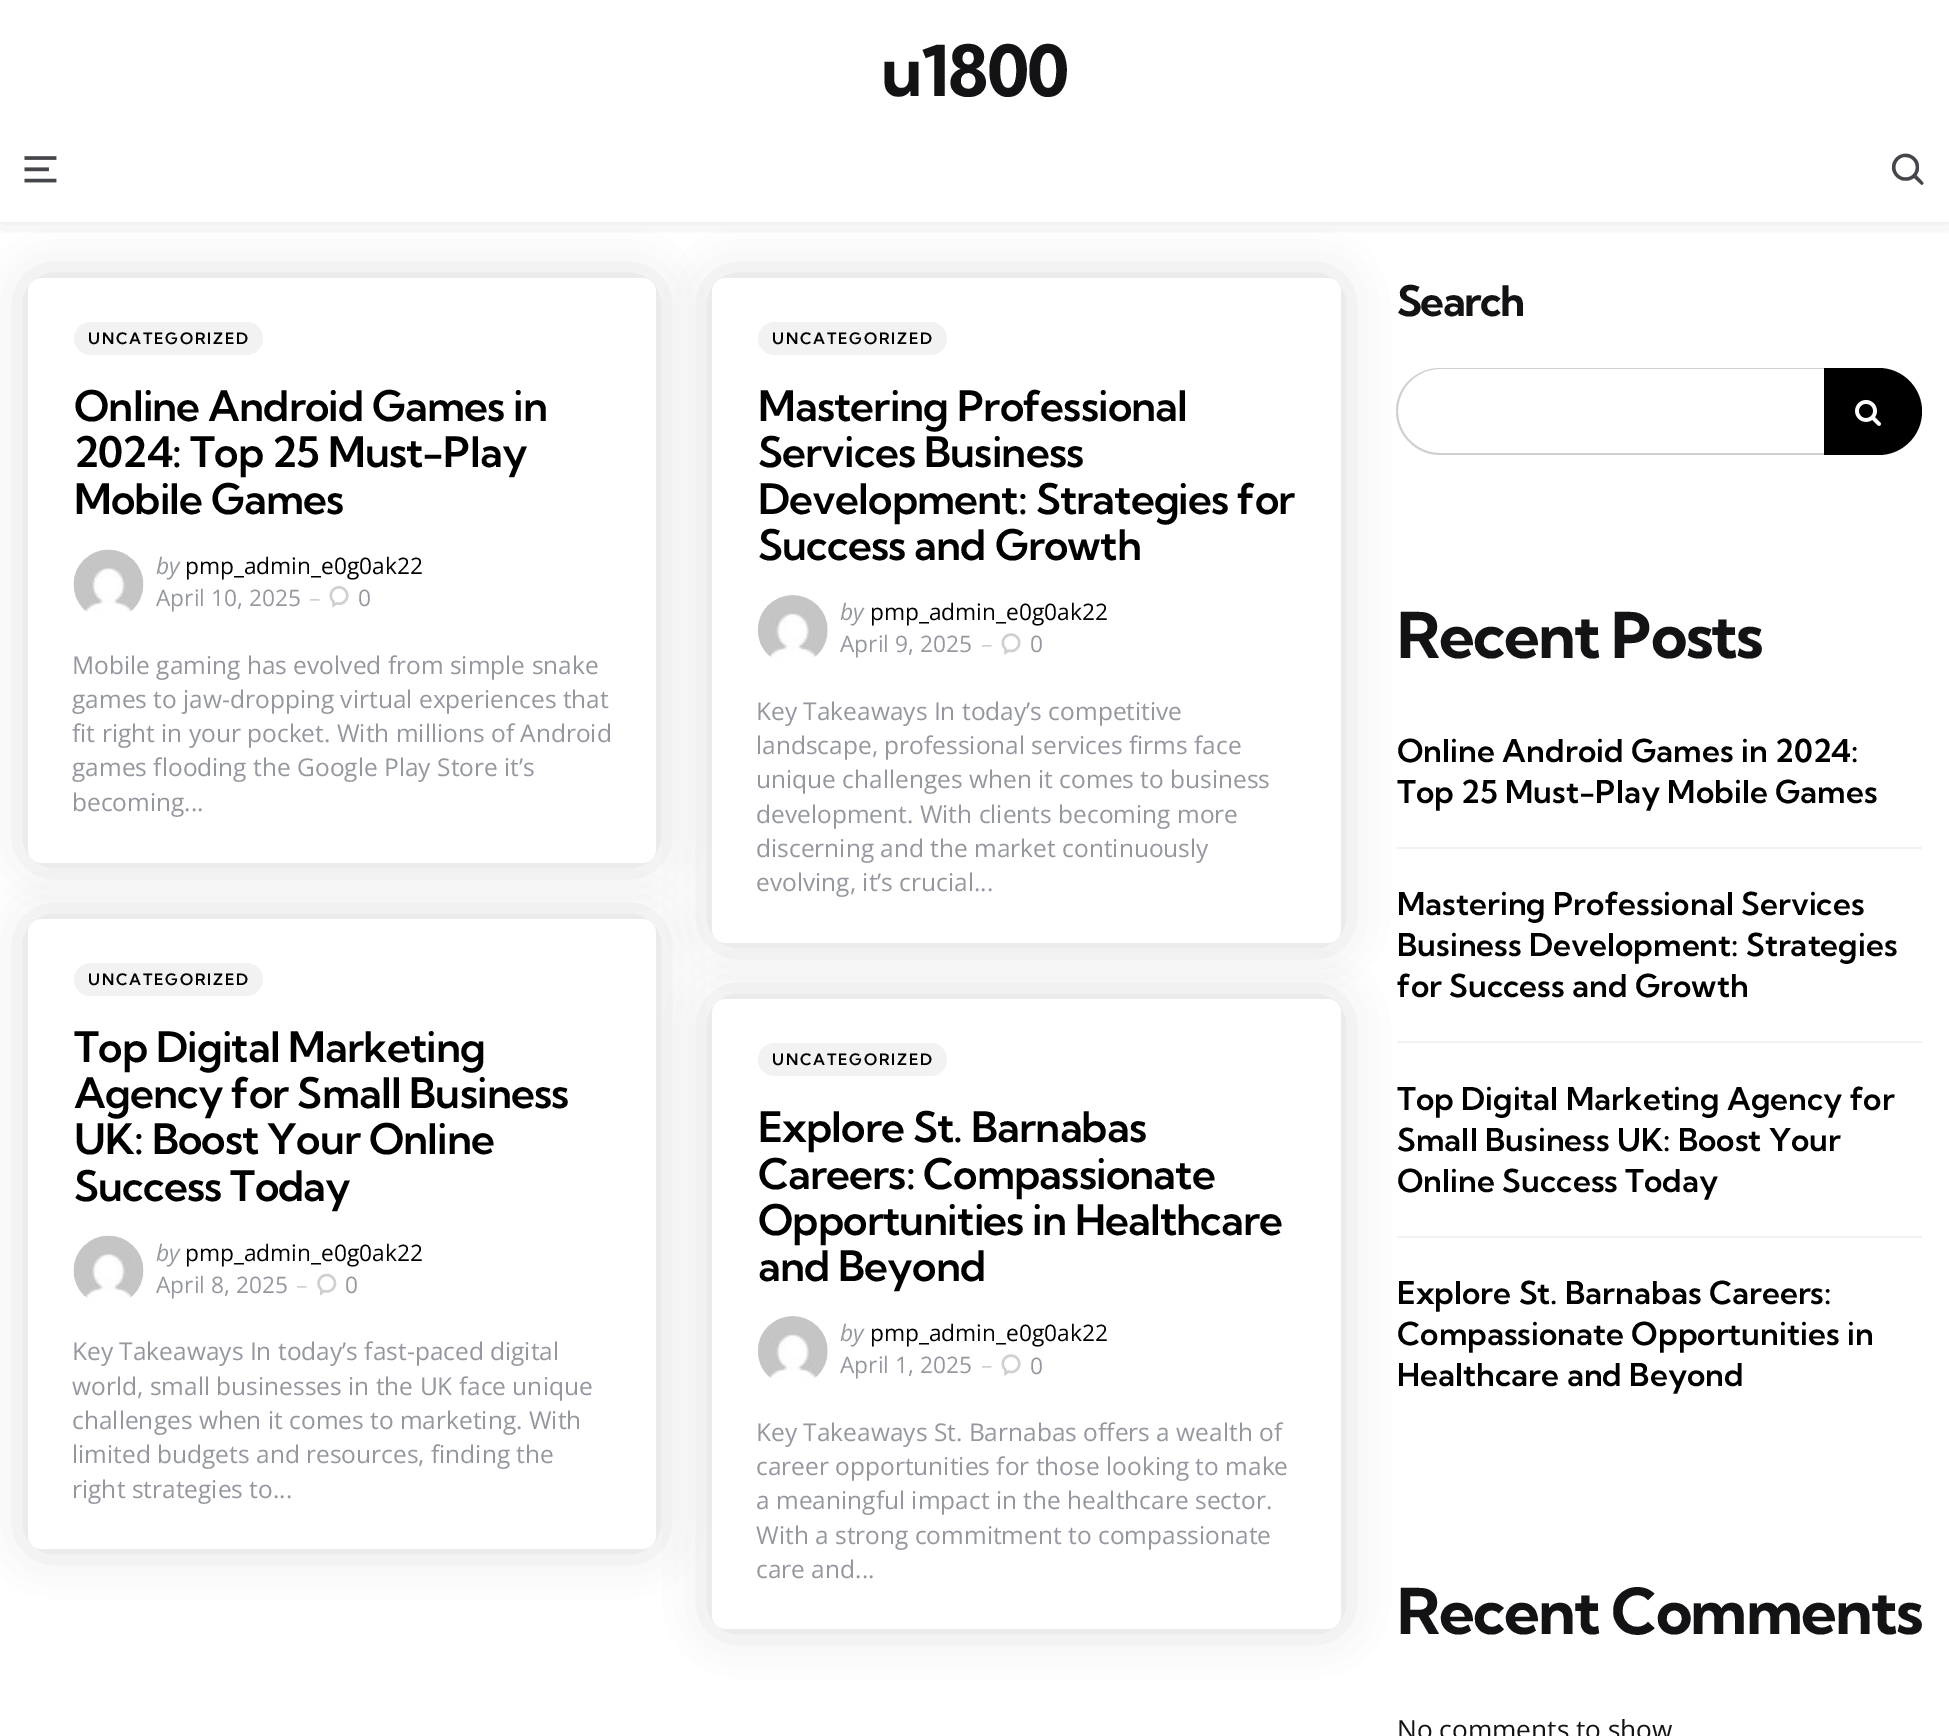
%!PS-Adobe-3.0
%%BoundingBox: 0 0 1949 1736
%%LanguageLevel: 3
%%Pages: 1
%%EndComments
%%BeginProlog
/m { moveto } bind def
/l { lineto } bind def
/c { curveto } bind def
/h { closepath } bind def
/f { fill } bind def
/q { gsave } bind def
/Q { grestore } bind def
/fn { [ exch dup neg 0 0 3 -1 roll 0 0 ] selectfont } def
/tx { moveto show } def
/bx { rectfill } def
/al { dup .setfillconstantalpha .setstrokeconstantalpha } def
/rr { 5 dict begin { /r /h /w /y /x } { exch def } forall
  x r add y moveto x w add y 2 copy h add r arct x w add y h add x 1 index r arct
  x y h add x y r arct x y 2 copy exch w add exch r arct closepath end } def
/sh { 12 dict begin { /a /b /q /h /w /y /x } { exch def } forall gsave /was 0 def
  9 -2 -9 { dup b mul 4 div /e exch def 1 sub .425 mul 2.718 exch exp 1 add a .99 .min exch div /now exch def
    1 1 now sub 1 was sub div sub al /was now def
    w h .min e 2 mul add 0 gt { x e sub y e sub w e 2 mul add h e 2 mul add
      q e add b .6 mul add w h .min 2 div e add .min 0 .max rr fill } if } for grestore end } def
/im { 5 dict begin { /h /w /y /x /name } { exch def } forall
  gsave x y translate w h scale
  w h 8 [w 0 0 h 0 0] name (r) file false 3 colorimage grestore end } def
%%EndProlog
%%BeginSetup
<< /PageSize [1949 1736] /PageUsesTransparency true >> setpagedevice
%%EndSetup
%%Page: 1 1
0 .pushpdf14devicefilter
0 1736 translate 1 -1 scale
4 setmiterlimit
1 setgray
0 0 1949 1736 bx
q
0 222 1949 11 rectclip
0 setgray
0 0 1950 222 0 13 0.1 sh
Q
/KumbhSans-Bold 70 fn
0.075 0.075 0.082 setrgbcolor
881 96 m -1.75 0 (u1800) ashow
(image0.raw) 24 156 33 27 im
(image1.raw) 1891 153 33 32 im
0 setgray
28 278 628 585 14 22 0.07 sh
28 278 628 585 14 22 0.07 sh
1 setgray
28 278 628 585 14 rr f
0.949 0.949 0.953 setrgbcolor
74 322 189 33 16.5 rr f
/KumbhSans-SemiBold 15.75 fn
0 setgray
88 344 m 1.75 0 (UNCATEGORIZED) ashow
/KumbhSans-SemiBold 42 fn
74 421 m -0.9 0 (Online Android Games in) ashow
74 467 m -0.9 0 (2024: Top 25 Must-Play) ashow
74 514 m -0.9 0 (Mobile Games) ashow
(image2.raw) 73 549 71 63 im
/OpenSans-Italic 22.75 fn
0.58 0.592 0.62 setrgbcolor
(by) 156 574 tx
/OpenSans-Regular 22.75 fn
0 setgray
(pmp_admin_e0g0ak22) 185 574 tx
0.58 0.592 0.62 setrgbcolor
(April 10, 2025) 156 606 tx
0.812 0.816 0.824 setrgbcolor
(–) 309 606 tx
(image3.raw) 329 586 20 22 im
0.58 0.592 0.62 setrgbcolor
(0) 358 606 tx
/OpenSans-Regular 24.5 fn
(Mobile gaming has evolved from simple snake) 72 674 tx
(games to jaw-dropping virtual experiences that) 72 708 tx
(fit right in your pocket. With millions of Android) 72 742 tx
(games flooding the Google Play Store it’s) 72 776 tx
(becoming...) 72 811 tx
0 setgray
712 278 629 665 14 22 0.07 sh
712 278 629 665 14 22 0.07 sh
1 setgray
712 278 629 665 14 rr f
0.949 0.949 0.953 setrgbcolor
758 322 189 33 16.5 rr f
/KumbhSans-SemiBold 15.75 fn
0 setgray
772 344 m 1.75 0 (UNCATEGORIZED) ashow
/KumbhSans-SemiBold 42 fn
758 421 m -0.9 0 (Mastering Professional) ashow
758 467 m -0.9 0 (Services Business) ashow
758 514 m -0.9 0 (Development: Strategies for) ashow
758 560 m -0.9 0 (Success and Growth) ashow
(image4.raw) 758 595 70 63 im
/OpenSans-Italic 22.75 fn
0.58 0.592 0.62 setrgbcolor
(by) 840 620 tx
/OpenSans-Regular 22.75 fn
0 setgray
(pmp_admin_e0g0ak22) 870 620 tx
0.58 0.592 0.62 setrgbcolor
(April 9, 2025) 840 652 tx
0.812 0.816 0.824 setrgbcolor
(–) 981 652 tx
(image5.raw) 1001 633 20 22 im
0.58 0.592 0.62 setrgbcolor
(0) 1030 652 tx
/OpenSans-Regular 24.5 fn
(Key Takeaways In today’s competitive) 756 720 tx
(landscape, professional services firms face) 756 754 tx
(unique challenges when it comes to business) 756 788 tx
(development. With clients becoming more) 756 823 tx
(discerning and the market continuously) 756 857 tx
(evolving, it’s crucial...) 756 891 tx
0 setgray
28 919 628 630 14 22 0.07 sh
28 919 628 630 14 22 0.07 sh
1 setgray
28 919 628 630 14 rr f
0.949 0.949 0.953 setrgbcolor
74 963 189 33 16.5 rr f
/KumbhSans-SemiBold 15.75 fn
0 setgray
88 985 m 1.75 0 (UNCATEGORIZED) ashow
/KumbhSans-SemiBold 42 fn
74 1062 m -0.9 0 (Top Digital Marketing) ashow
74 1108 m -0.9 0 (Agency for Small Business) ashow
74 1154 m -0.9 0 (UK: Boost Your Online) ashow
74 1201 m -0.9 0 (Success Today) ashow
(image6.raw) 73 1235 71 63 im
/OpenSans-Italic 22.75 fn
0.58 0.592 0.62 setrgbcolor
(by) 156 1261 tx
/OpenSans-Regular 22.75 fn
0 setgray
(pmp_admin_e0g0ak22) 185 1261 tx
0.58 0.592 0.62 setrgbcolor
(April 8, 2025) 156 1293 tx
0.812 0.816 0.824 setrgbcolor
(–) 296 1293 tx
(image7.raw) 317 1273 20 23 im
0.58 0.592 0.62 setrgbcolor
(0) 345 1293 tx
/OpenSans-Regular 24.5 fn
(Key Takeaways In today’s fast-paced digital) 72 1360 tx
(world, small businesses in the UK face unique) 72 1395 tx
(challenges when it comes to marketing. With) 72 1429 tx
(limited budgets and resources, finding the) 72 1463 tx
(right strategies to...) 72 1498 tx
0 setgray
712 999 629 630 14 22 0.07 sh
712 999 629 630 14 22 0.07 sh
1 setgray
712 999 629 630 14 rr f
0.949 0.949 0.953 setrgbcolor
758 1043 189 33 16.5 rr f
/KumbhSans-SemiBold 15.75 fn
0 setgray
772 1065 m 1.75 0 (UNCATEGORIZED) ashow
/KumbhSans-SemiBold 42 fn
758 1142 m -0.9 0 (Explore St. Barnabas) ashow
758 1189 m -0.9 0 (Careers: Compassionate) ashow
758 1235 m -0.9 0 (Opportunities in Healthcare) ashow
758 1281 m -0.9 0 (and Beyond) ashow
(image4.raw) 758 1316 70 63 im
/OpenSans-Italic 22.75 fn
0.58 0.592 0.62 setrgbcolor
(by) 840 1341 tx
/OpenSans-Regular 22.75 fn
0 setgray
(pmp_admin_e0g0ak22) 870 1341 tx
0.58 0.592 0.62 setrgbcolor
(April 1, 2025) 840 1373 tx
0.812 0.816 0.824 setrgbcolor
(–) 981 1373 tx
(image5.raw) 1001 1354 20 22 im
0.58 0.592 0.62 setrgbcolor
(0) 1030 1374 tx
/OpenSans-Regular 24.5 fn
(Key Takeaways St. Barnabas offers a wealth of) 756 1441 tx
(career opportunities for those looking to make) 756 1475 tx
(a meaningful impact in the healthcare sector.) 756 1509 tx
(With a strong commitment to compassionate) 756 1544 tx
(care and...) 756 1578 tx
/KumbhSans-Bold 42 fn
0.075 0.075 0.082 setrgbcolor
1397 316 m -1.75 0 (Search) ashow
0.812 0.816 0.824 setrgbcolor
1440 368 m 1824 368 l 1824 455 l 1440 455 l 1416 455 1396 435 1396 411 c 1396 387 1416 368 1440 368 c h 1440 369 m 1824 369 l 1824 453 l 1440 453 l 1417 453 1398 434 1398 411 c 1398 388 1417 369 1440 369 c h eofill
0 setgray
1824 368 m 1878.5 368 l 1902.5 368 1922 387.5 1922 411.5 c 1922 435.5 1902.5 455 1878.5 455 c 1824 455 l h f
(image8.raw) 1855 399 26 27 im
/KumbhSans-Bold 63 fn
0.075 0.075 0.082 setrgbcolor
1397 658 m -1.75 0 (Recent Posts) ashow
0.949 0.949 0.953 setrgbcolor
1397 847 525 2 bx
/KumbhSans-SemiBold 31.5 fn
0 setgray
(Online Android Games in 2024:) 1397 762 tx
(Top 25 Must-Play Mobile Games) 1397 803 tx
0.949 0.949 0.953 setrgbcolor
1397 1041 525 2 bx
0 setgray
(Mastering Professional Services) 1397 915 tx
(Business Development: Strategies) 1397 956 tx
(for Success and Growth) 1397 997 tx
0.949 0.949 0.953 setrgbcolor
1397 1236 525 2 bx
0 setgray
(Top Digital Marketing Agency for) 1397 1110 tx
(Small Business UK: Boost Your) 1397 1151 tx
(Online Success Today) 1397 1192 tx
(Explore St. Barnabas Careers:) 1397 1304 tx
(Compassionate Opportunities in) 1397 1345 tx
(Healthcare and Beyond) 1397 1386 tx
/KumbhSans-Bold 63 fn
0.075 0.075 0.082 setrgbcolor
1397 1634 m -1.75 0 (Recent Comments) ashow
/OpenSans-Regular 26.25 fn
(No comments to show) 1397 1739 tx
.poppdf14devicefilter showpage
%%EOF
